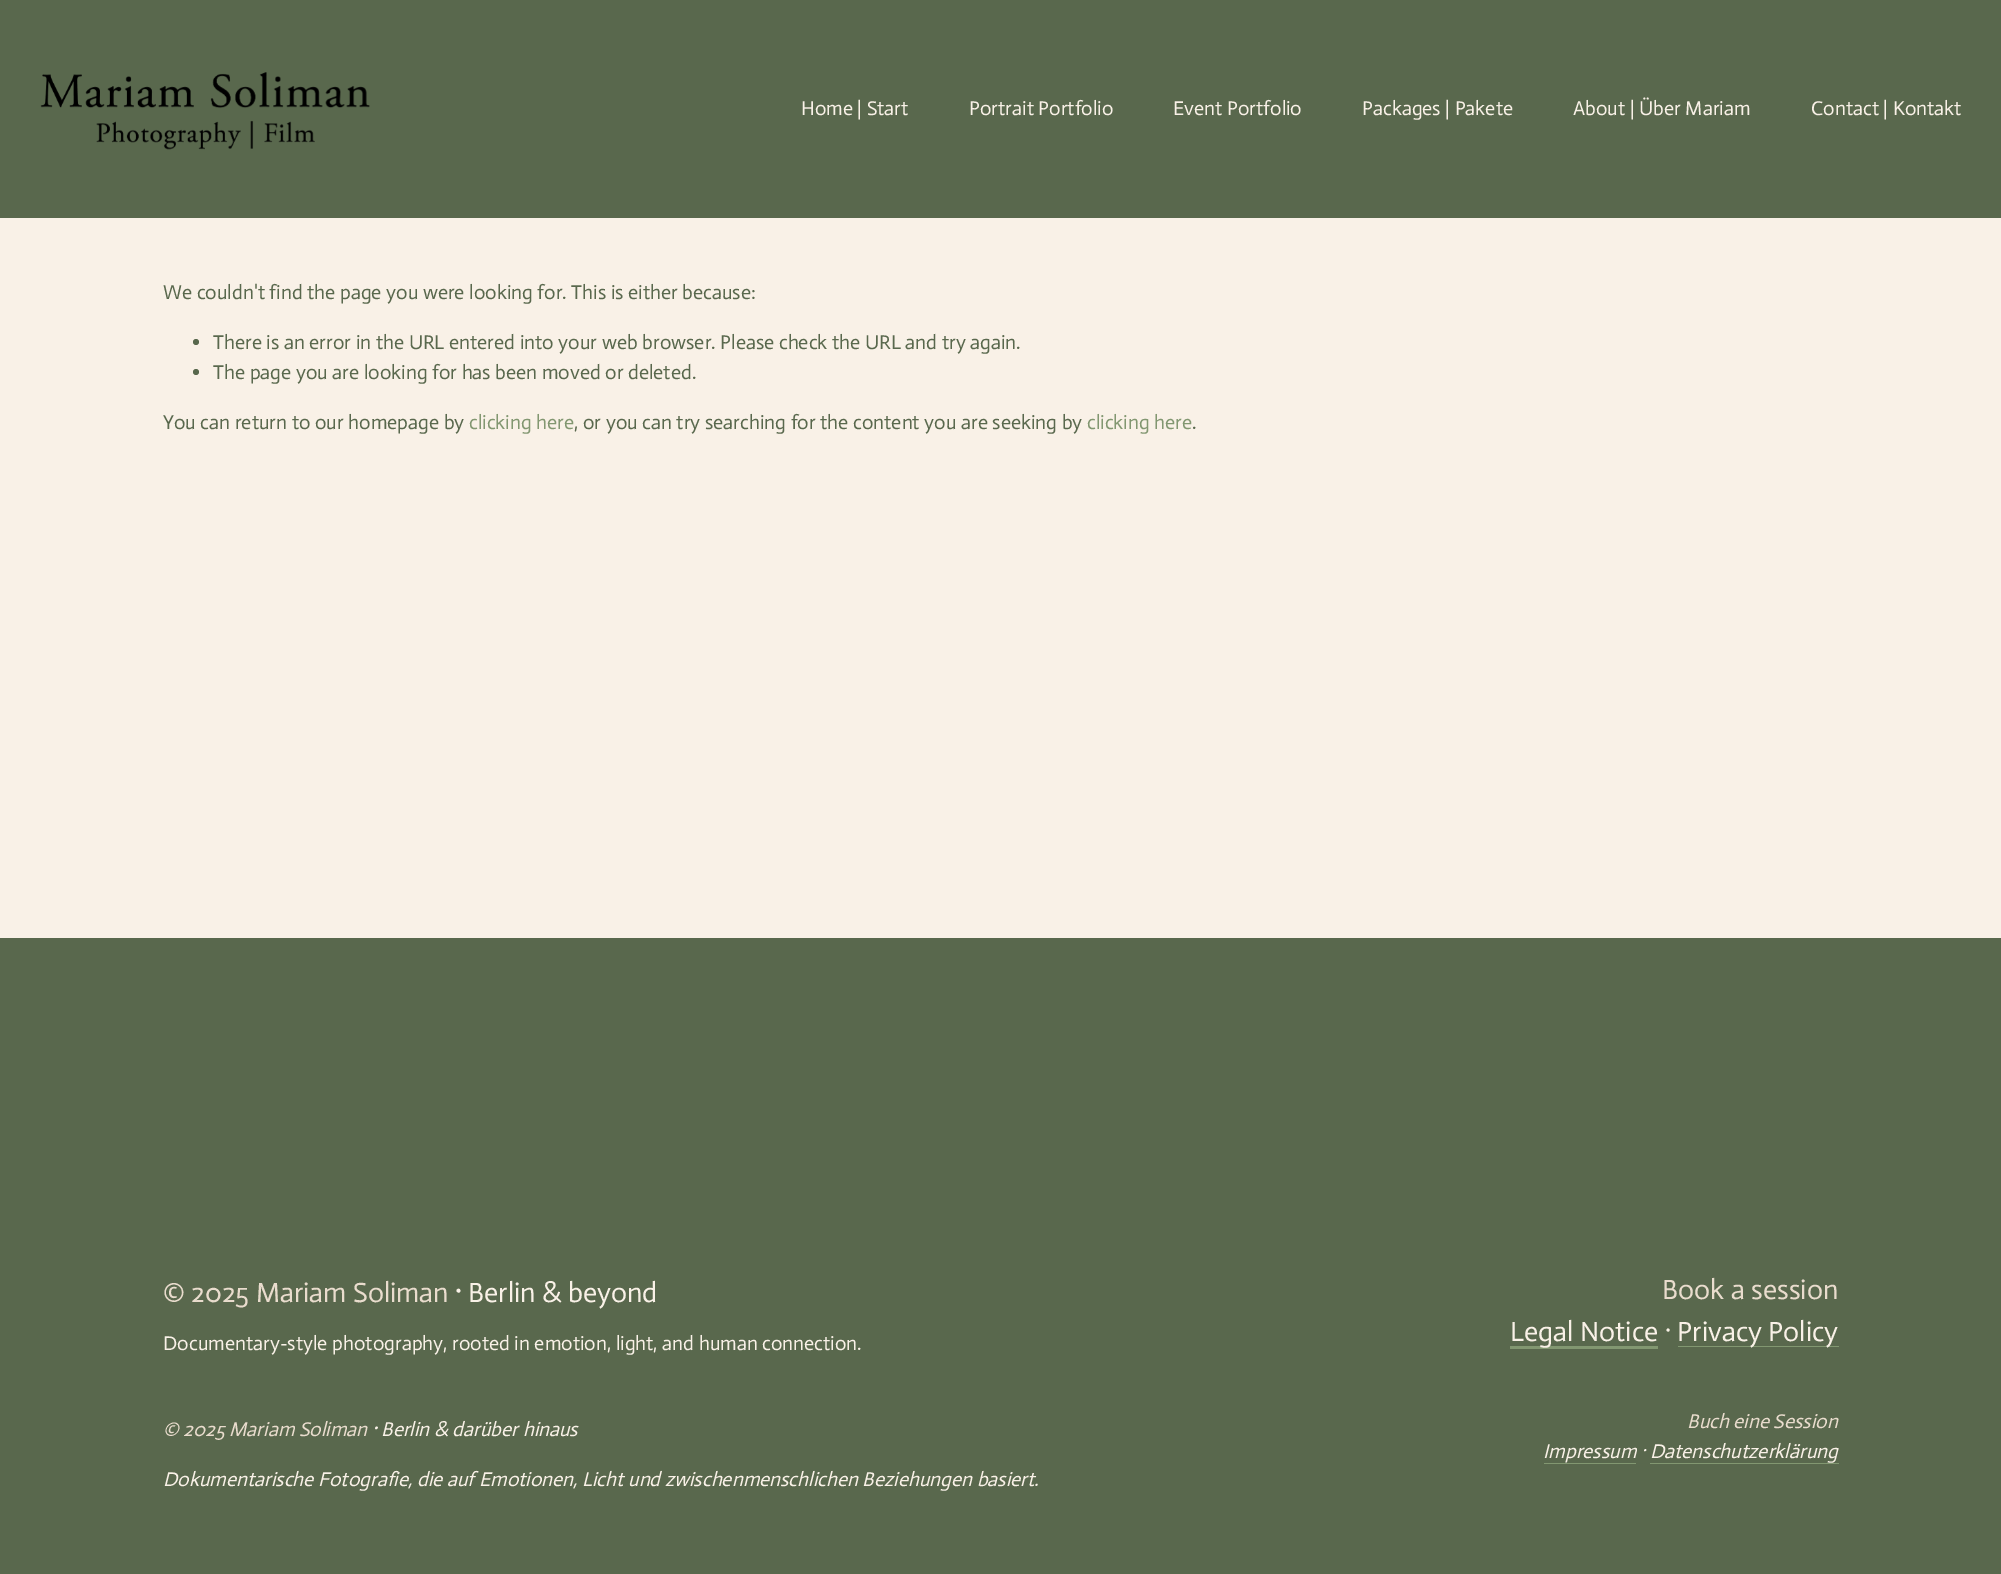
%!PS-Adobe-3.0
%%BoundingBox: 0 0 2001 1574
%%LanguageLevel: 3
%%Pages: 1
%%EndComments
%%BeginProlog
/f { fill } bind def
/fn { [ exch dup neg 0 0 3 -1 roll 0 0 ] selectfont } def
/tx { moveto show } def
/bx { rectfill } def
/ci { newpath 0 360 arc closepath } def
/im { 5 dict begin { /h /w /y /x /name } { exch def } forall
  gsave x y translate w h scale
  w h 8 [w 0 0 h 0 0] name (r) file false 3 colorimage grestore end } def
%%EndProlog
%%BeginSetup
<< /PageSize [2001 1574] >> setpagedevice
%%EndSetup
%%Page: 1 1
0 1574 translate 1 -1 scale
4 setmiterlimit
0.976 0.945 0.906 setrgbcolor
0 0 2001 1574 bx
0.349 0.408 0.302 setrgbcolor
0 0 2001 218 bx
(image0.raw) 40 72 330 78 im
/Actor-Regular 20 fn
0.976 0.945 0.906 setrgbcolor
(Home | Start) 801 115 tx
(Portrait Portfolio) 969 115 tx
(Event Portfolio) 1173 115 tx
(Packages | Pakete) 1362 115 tx
(About | Über Mariam) 1573 115 tx
(Contact | Kontakt) 1811 115 tx
0.349 0.408 0.302 setrgbcolor
(We couldn't find the page you were looking for. This is either because:) 163 299 tx
196 342 3 ci f
(There is an error in the URL entered into your web browser. Please check the URL and try again.) 213 349 tx
196 372 3 ci f
(The page you are looking for has been moved or deleted.) 213 379 tx
(You can return to our homepage by) 163 429 tx
0.51 0.592 0.443 setrgbcolor
(clicking here) 469 429 tx
0.349 0.408 0.302 setrgbcolor
(, or you can try searching for the content you are seeking by) 574 429 tx
0.51 0.592 0.443 setrgbcolor
(clicking here) 1087 429 tx
0.349 0.408 0.302 setrgbcolor
(.) 1192 429 tx
0 938 2001 636 bx
/Actor-Regular 28 fn
0.914 0.863 0.804 setrgbcolor
(© 2025 Mariam Soliman) 163 1302 tx
/Actor-Bold 28 fn
0.976 0.945 0.906 setrgbcolor
(·) 455 1302 tx
/Actor-Regular 28 fn
(Berlin & beyond) 468 1302 tx
0.914 0.863 0.804 setrgbcolor
(Book a session) 1662 1299 tx
0.51 0.592 0.443 setrgbcolor
1510 1346 148 3 bx
0.976 0.945 0.906 setrgbcolor
(Legal Notice ·) 1510 1341 tx
0.51 0.592 0.443 setrgbcolor
1678 1346 161 1 bx
0.976 0.945 0.906 setrgbcolor
(Privacy Policy) 1677 1341 tx
/Actor-Regular 20 fn
(Documentary-style photography, rooted in emotion, light, and human connection.) 163 1350 tx
/Actor-Italic 20 fn
0.914 0.863 0.804 setrgbcolor
(© 2025 Mariam Soliman) 163 1436 tx
/Actor-BoldItalic 20 fn
0.976 0.945 0.906 setrgbcolor
(·) 372 1436 tx
/Actor-Italic 20 fn
(Berlin & darüber hinaus) 381 1436 tx
(Dokumentarische Fotografie, die auf Emotionen, Licht und zwischenmenschlichen Beziehungen basiert.) 163 1486 tx
0.914 0.863 0.804 setrgbcolor
(Buch eine Session) 1687 1428 tx
0.976 0.945 0.906 setrgbcolor
(Impressum · Datenschutzerklärung) 1543 1458 tx
0.51 0.592 0.443 setrgbcolor
1544 1463 92 1 bx
1650 1463 189 1 bx
showpage
%%EOF
